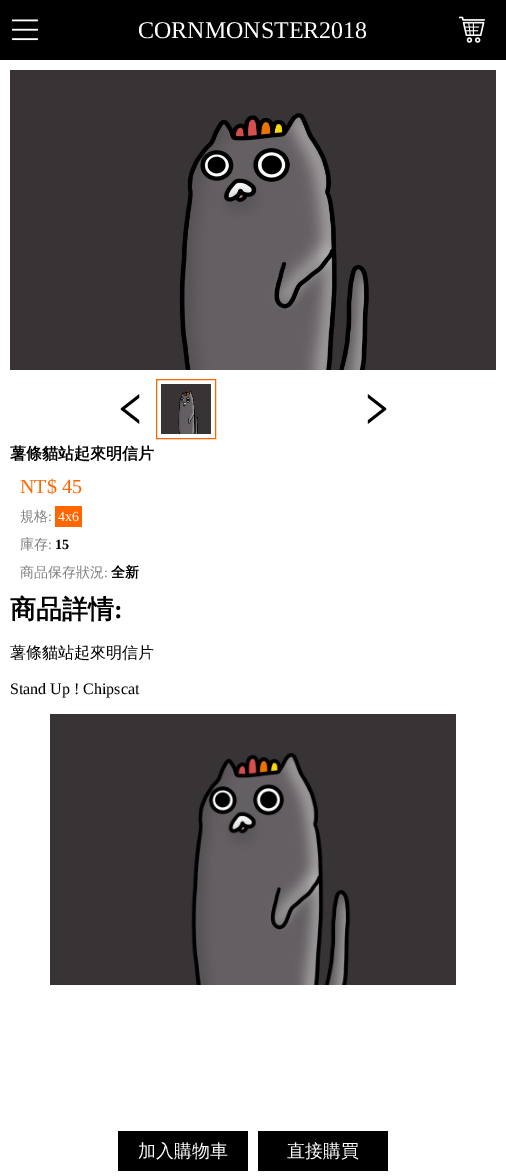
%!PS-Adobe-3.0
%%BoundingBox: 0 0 506 1176
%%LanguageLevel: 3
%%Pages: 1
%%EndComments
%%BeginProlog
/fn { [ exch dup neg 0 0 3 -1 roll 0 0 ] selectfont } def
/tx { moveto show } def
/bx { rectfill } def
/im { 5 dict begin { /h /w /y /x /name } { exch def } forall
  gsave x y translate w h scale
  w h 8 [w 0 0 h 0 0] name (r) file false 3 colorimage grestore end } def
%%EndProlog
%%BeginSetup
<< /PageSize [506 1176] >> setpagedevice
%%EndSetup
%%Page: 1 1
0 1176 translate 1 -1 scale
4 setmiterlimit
1 setgray
0 0 506 1176 bx
0 setgray
0 0 506 60 bx
(image0.raw) 11 19 28 22 im
/LiberationSerif-Regular 24 fn
1 setgray
(CORNMONSTER2018) 138 38 tx
(image1.raw) 458 16 27 27 im
(image2.raw) 10 70 486 300 im
(image3.raw) 120 394 20 30 im
1 0.4 0 setrgbcolor
156.5 379.5 59 59 rectstroke
(image4.raw) 161 384 50 50 im
(image5.raw) 367 394 20 30 im
/WenQuanYiZenHei-Bold 16 fn
0 setgray
(薯條貓站起來明信片) 10 459 tx
/LiberationSerif-Regular 20 fn
1 0.4 0 setrgbcolor
(NT$ 45) 20 493 tx
/WenQuanYiZenHei-Medium 14 fn
0.502 setgray
(規格) 20 521 tx
/LiberationSerif-Regular 14 fn
(:) 48 521 tx
1 0.4 0 setrgbcolor
55 506 27 21 bx
1 setgray
(4x6) 58 521 tx
/WenQuanYiZenHei-Medium 14 fn
0.502 setgray
(庫存) 20 549 tx
/LiberationSerif-Regular 14 fn
(:) 48 549 tx
/LiberationSerif-Bold 14 fn
0 setgray
(15) 55 549 tx
/WenQuanYiZenHei-Medium 14 fn
0.502 setgray
(商品保存狀況) 20 577 tx
/LiberationSerif-Regular 14 fn
(:) 104 577 tx
/WenQuanYiZenHei-Bold 14 fn
0 setgray
(全新) 111 577 tx
/WenQuanYiZenHei-Bold 26 fn
(商品詳情) 10 618 tx
/LiberationSerif-Bold 26 fn
(:) 114 618 tx
/WenQuanYiZenHei-Medium 16 fn
(薯條貓站起來明信片) 10 658 tx
/LiberationSerif-Regular 16 fn
(Stand Up ! Chipscat) 10 694 tx
(image6.raw) 50 714 406 271 im
118 1131 130 40 bx
/WenQuanYiZenHei-Medium 18 fn
1 setgray
(加入購物車) 138 1157 tx
0 setgray
258 1131 130 40 bx
1 setgray
(直接購買) 287 1157 tx
showpage
%%EOF
